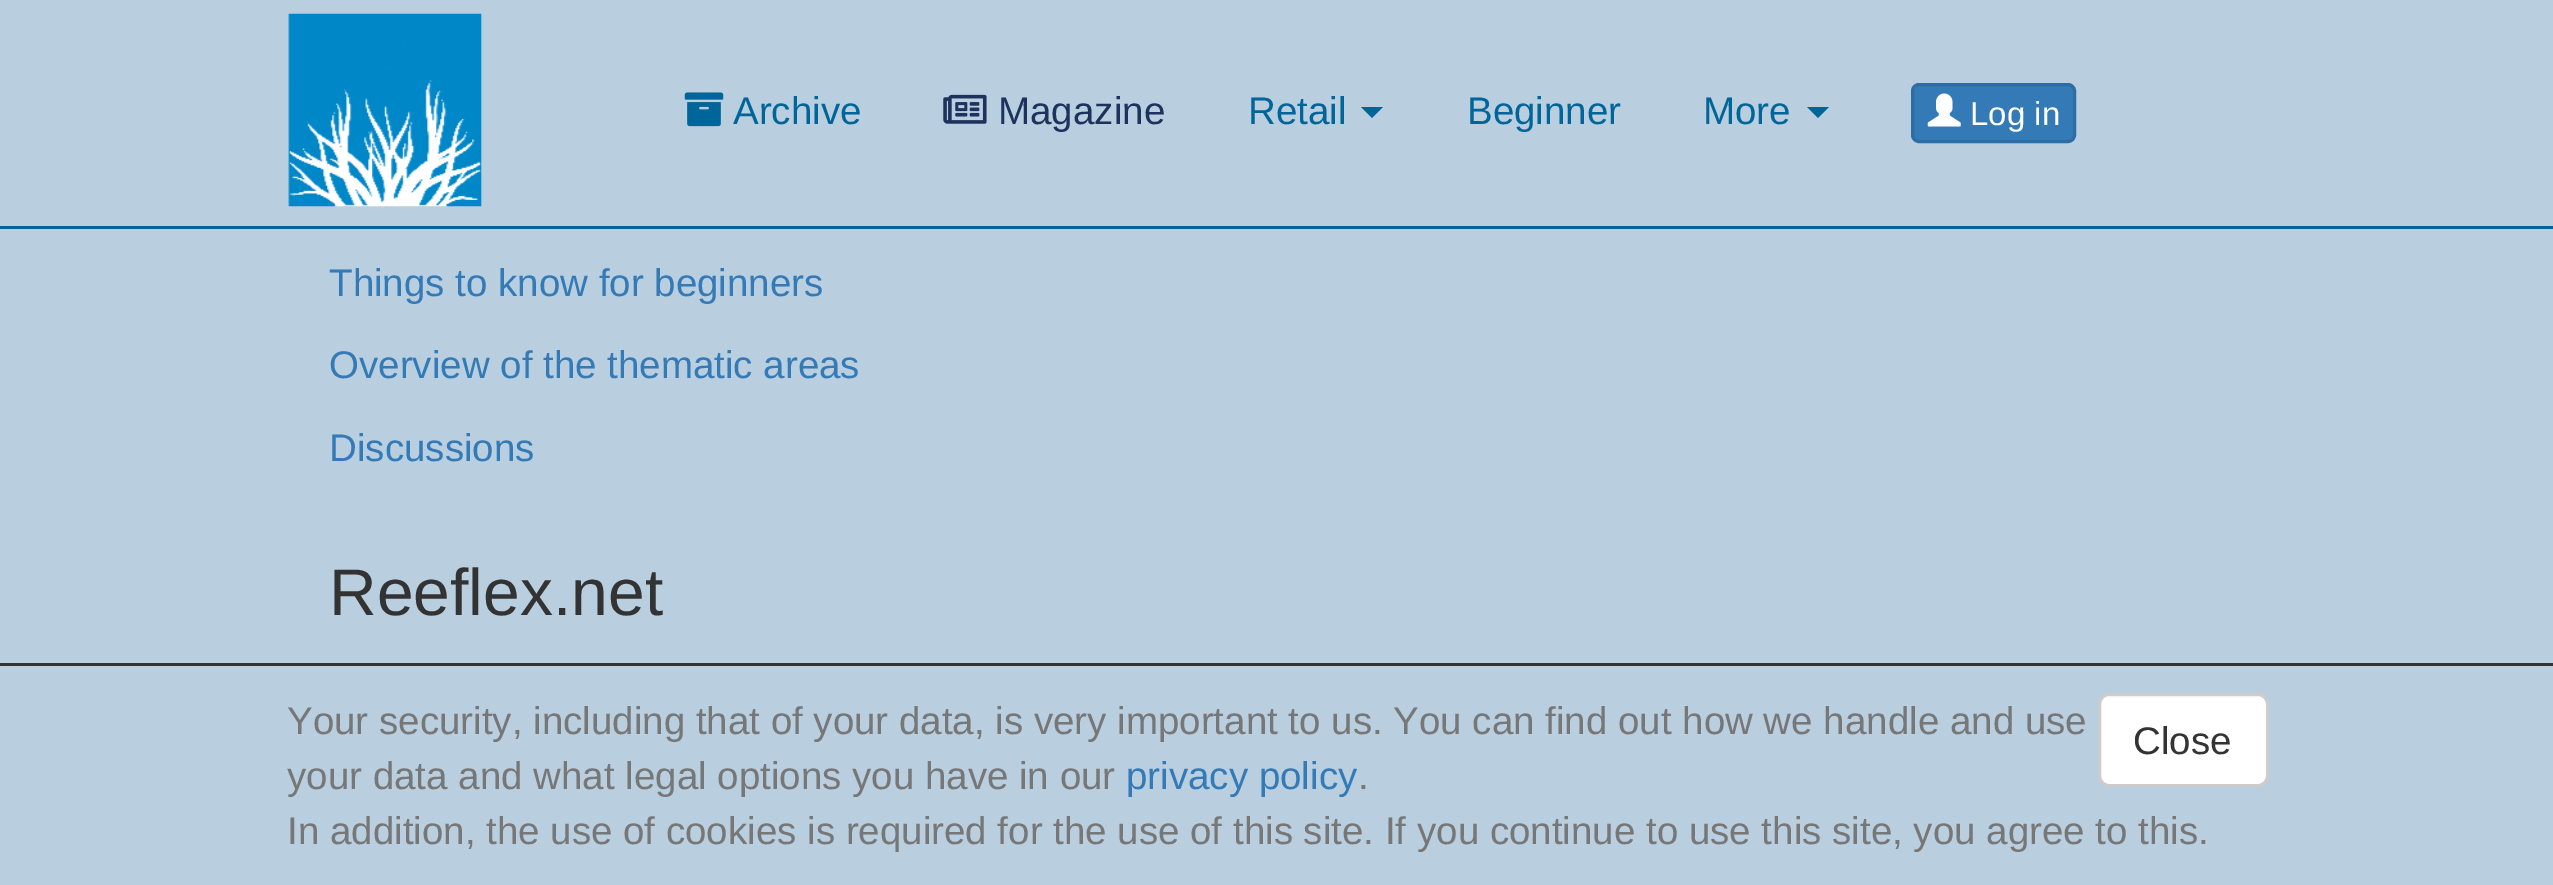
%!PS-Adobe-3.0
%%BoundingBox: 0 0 2553 885
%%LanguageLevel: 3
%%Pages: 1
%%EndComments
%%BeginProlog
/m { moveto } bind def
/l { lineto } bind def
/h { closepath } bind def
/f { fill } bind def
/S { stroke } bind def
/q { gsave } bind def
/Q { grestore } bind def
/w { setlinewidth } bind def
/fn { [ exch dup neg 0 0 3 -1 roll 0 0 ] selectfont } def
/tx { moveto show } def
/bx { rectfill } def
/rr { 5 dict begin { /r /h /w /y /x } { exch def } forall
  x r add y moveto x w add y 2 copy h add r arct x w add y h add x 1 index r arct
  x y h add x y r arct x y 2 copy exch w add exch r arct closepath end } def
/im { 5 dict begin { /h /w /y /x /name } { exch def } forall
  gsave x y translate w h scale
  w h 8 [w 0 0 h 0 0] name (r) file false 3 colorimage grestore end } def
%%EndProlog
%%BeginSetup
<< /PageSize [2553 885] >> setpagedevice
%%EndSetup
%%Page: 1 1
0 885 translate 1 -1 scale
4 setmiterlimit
0.725 0.812 0.878 setrgbcolor
0 0 2553 885 bx
0 0.4 0.6 setrgbcolor
0 226 2553 3 bx
(image0.raw) 288 13 194 194 im
(image1.raw) 684 92 40 35 im
/LiberationSans-Regular 38.5 fn
(Archive) 733 124 tx
(image2.raw) 943 94 44 30 im
0.118 0.196 0.365 setrgbcolor
(Magazine) 998 124 tx
0 0.4 0.6 setrgbcolor
(Retail) 1248 124 tx
1361 107 m 1383 107 l 1372 118 l h f
(Beginner) 1467 124 tx
(More) 1703 124 tx
1807 107 m 1829 107 l 1818 118 l h f
0.2 0.478 0.718 setrgbcolor
1912.5 84.5 162 57 6.5 rr q f Q
0.18 0.427 0.643 setrgbcolor
3 w
S
(image3.raw) 1927 93 34 34 im
/LiberationSans-Regular 33 fn
1 setgray
(Log in) 1970 125 tx
/LiberationSans-Regular 38.5 fn
0.2 0.478 0.718 setrgbcolor
(Things to know for beginners) 329 296 tx
(Overview of the thematic areas) 329 378 tx
(Discussions) 329 461 tx
/LiberationSans-Regular 66 fn
0.2 setgray
(Reeflex.net) 329 615 tx
0 663 2553 3 bx
/LiberationSans-Regular 38.5 fn
0.467 setgray
(Your security, including that of your data, is very important to us. You can find out how we handle and use) 287 734 tx
(your data and what legal options you have in our) 287 789 tx
0.2 0.478 0.718 setrgbcolor
(privacy policy) 1126 789 tx
0.467 setgray
(.) 1358 789 tx
(In addition, the use of cookies is required for the use of this site. If you continue to use this site, you agree to this.) 287 844 tx
1 setgray
2099.5 694.5 168 91 9.5 rr q f Q
0.8 setgray
S
0.2 setgray
(Close) 2133 754 tx
showpage
%%EOF
